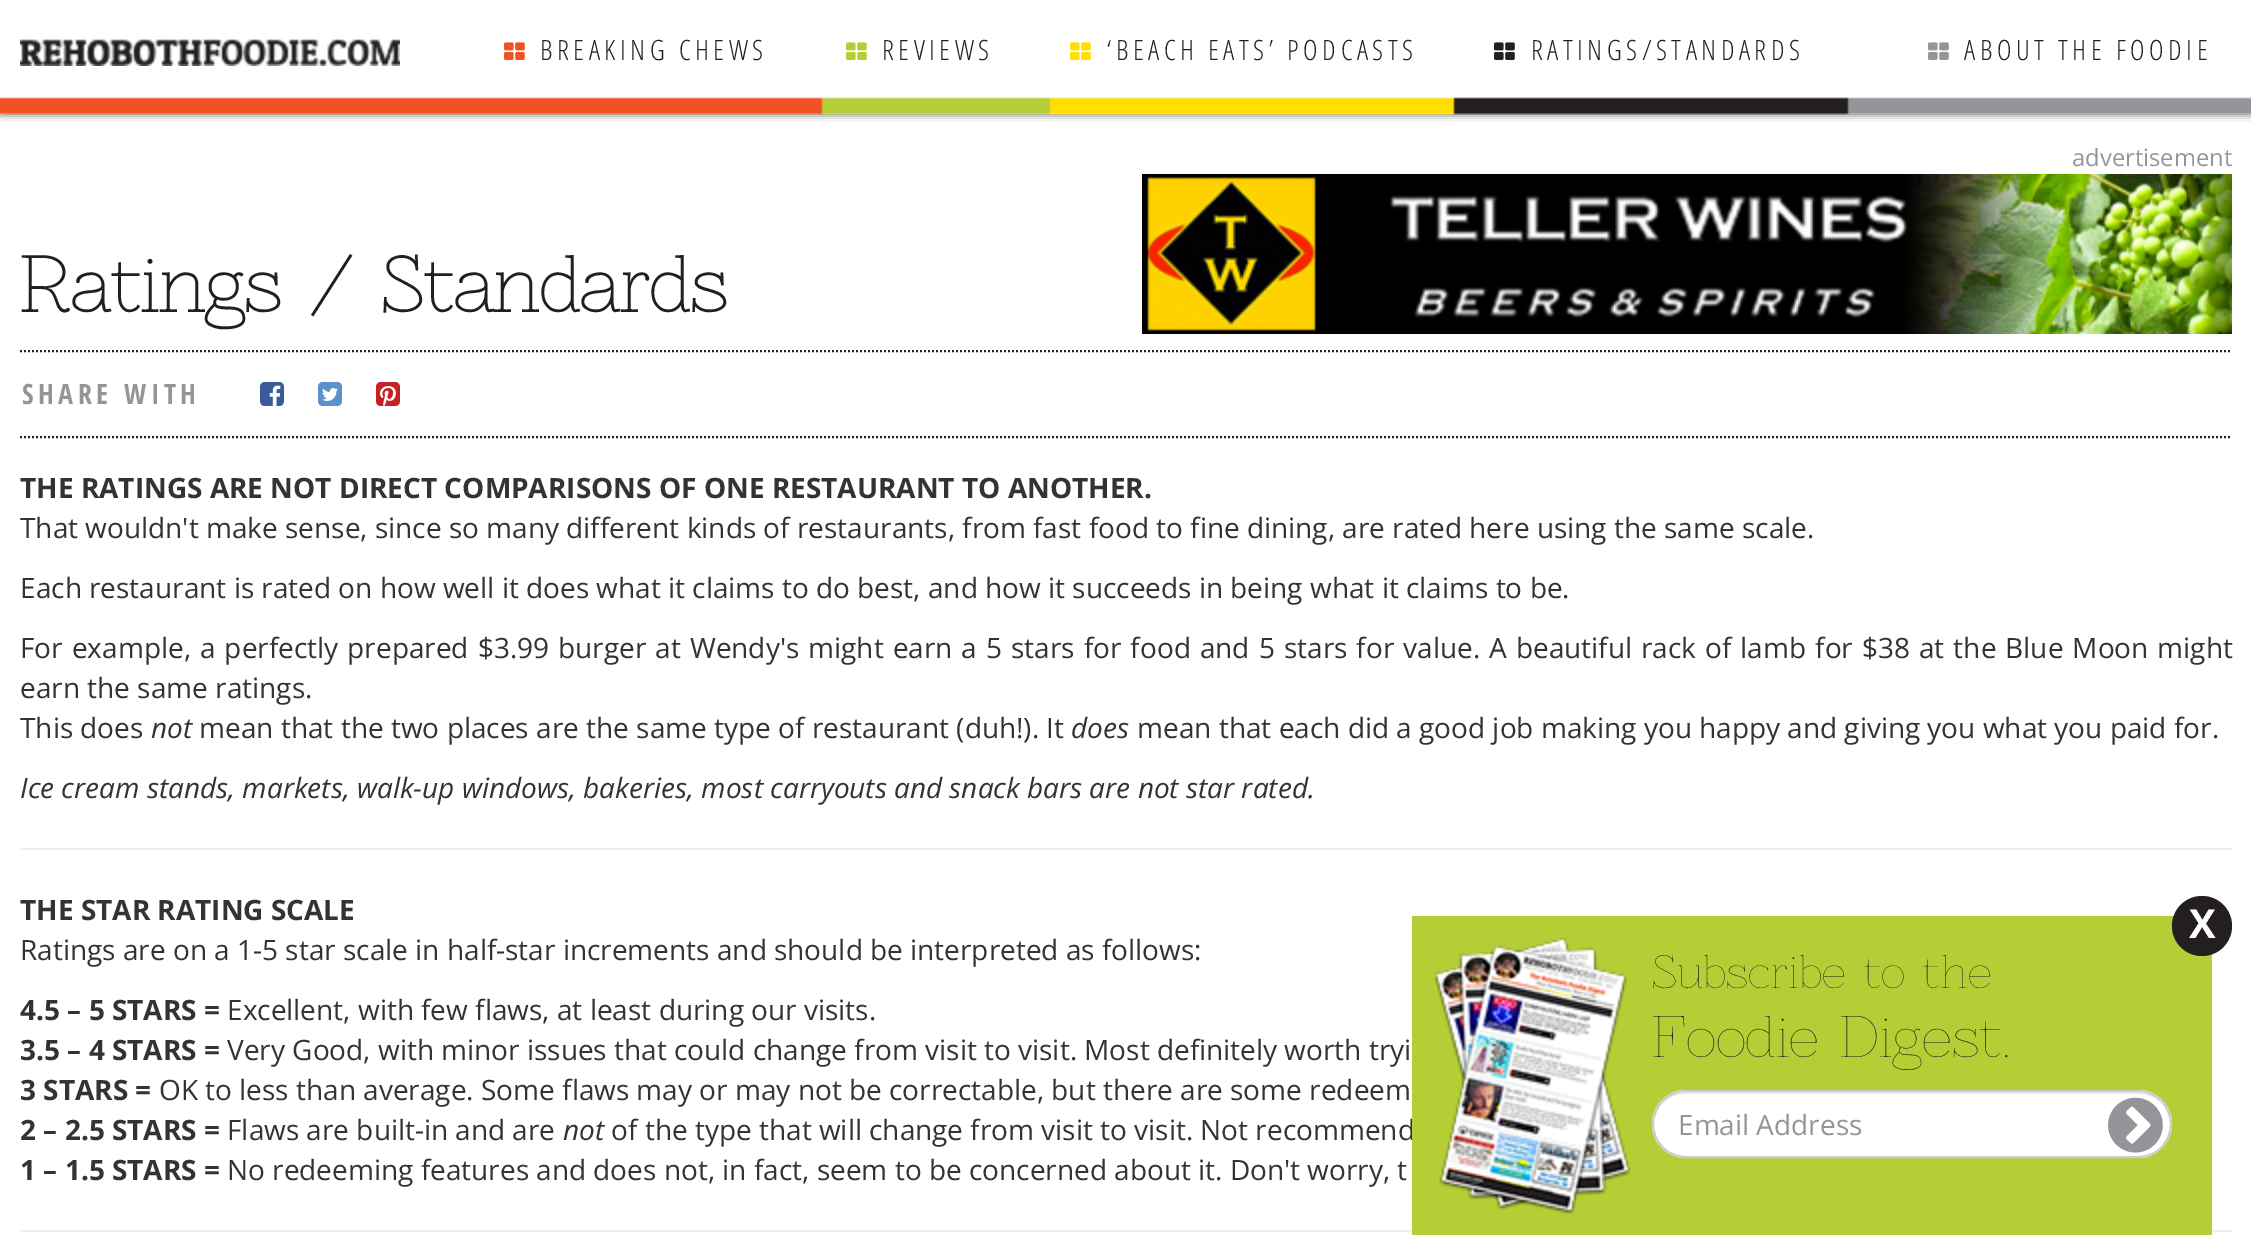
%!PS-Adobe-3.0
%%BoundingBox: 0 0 2251 1235
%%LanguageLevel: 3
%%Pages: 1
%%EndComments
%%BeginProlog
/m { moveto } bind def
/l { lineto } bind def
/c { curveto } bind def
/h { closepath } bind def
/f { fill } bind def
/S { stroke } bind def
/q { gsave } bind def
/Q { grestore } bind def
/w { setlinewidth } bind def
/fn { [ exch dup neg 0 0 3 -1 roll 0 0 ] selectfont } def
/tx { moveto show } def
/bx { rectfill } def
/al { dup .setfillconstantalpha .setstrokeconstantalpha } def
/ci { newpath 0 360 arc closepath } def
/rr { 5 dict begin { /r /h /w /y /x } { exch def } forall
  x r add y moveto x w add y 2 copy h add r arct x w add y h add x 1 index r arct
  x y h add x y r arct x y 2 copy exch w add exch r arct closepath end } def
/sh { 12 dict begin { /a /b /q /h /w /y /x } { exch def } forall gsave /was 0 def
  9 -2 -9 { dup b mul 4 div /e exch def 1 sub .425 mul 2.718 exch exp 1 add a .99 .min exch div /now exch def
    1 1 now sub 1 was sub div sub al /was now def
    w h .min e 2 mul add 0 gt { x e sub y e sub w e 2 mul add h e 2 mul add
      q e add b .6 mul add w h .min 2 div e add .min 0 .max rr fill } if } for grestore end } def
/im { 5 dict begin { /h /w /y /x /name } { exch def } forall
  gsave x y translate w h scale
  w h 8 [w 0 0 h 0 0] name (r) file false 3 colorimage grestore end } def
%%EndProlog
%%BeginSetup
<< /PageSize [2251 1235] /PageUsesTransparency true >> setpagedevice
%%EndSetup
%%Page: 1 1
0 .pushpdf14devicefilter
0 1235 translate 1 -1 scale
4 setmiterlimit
1 setgray
0 0 2251 1235 bx
q
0 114 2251 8 rectclip
0 setgray
0 0 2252 114 0 4 0.7 sh
Q
(image0.raw) 0 97 2251 18 im
(image1.raw) 20 39 380 27 im
(image2.raw) 504 42 21 18 im
/OpenSansCondensed-Light 28 fn
0.137 0.122 0.125 setrgbcolor
540 60 m 4.5 0 (BREAKING CHEWS) ashow
(image3.raw) 846 42 21 18 im
882 60 m 4.5 0 (REVIEWS) ashow
(image4.raw) 1070 42 21 18 im
1107 60 m 4.5 0 (‘BEACH EATS’ PODCASTS) ashow
(image5.raw) 1494 42 21 18 im
1531 60 m 4.5 0 (RATINGS/STANDARDS) ashow
(image6.raw) 1928 42 21 18 im
1964 60 m 4.5 0 (ABOUT THE FOODIE) ashow
/OpenSans-Regular 23.75 fn
0.576 0.584 0.596 setrgbcolor
(advertisement) 2072 166 tx
(image7.raw) 1142 174 1090 160 im
/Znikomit-Bold 72 fn
0.137 0.122 0.125 setrgbcolor
(Ratings / Standards) 20 312 tx
2 w
[2 2] 0 setdash
20 351 m 2232 351 l S
20 437 m 2232 437 l S
/OpenSansCondensed-Bold 28 fn
0.576 0.584 0.596 setrgbcolor
22 404 m 4.5 0 (SHARE WITH) ashow
(image8.raw) 260 382 24 24 im
(image9.raw) 318 382 24 24 im
(image10.raw) 376 382 24 24 im
/OpenSans-Bold 28 fn
0.2 setgray
(THE RATINGS ARE NOT DIRECT COMPARISONS OF ONE RESTAURANT TO ANOTHER.) 20 498 tx
/OpenSans-Regular 28 fn
(That wouldn't make sense, since so many different kinds of restaurants, from fast food to fine dining, are rated here using the same scale.) 20 538 tx
(Each restaurant is rated on how well it does what it claims to do best, and how it succeeds in being what it claims to be.) 20 598 tx
20 658 m 1.75 0 32 (For example, a perfectly prepared $3.99 burger at Wendy's might earn a 5 stars for food and 5 stars for value. A beautiful rack of lamb for $38 at the Blue Moon might) widthshow
(earn the same ratings.) 20 698 tx
(This does) 20 738 tx
/OpenSans-Italic 28 fn
(not) 151 738 tx
/OpenSans-Regular 28 fn
(mean that the two places are the same type of restaurant \(duh!\). It) 199 738 tx
/OpenSans-Italic 28 fn
(does) 1071 738 tx
/OpenSans-Regular 28 fn
(mean that each did a good job making you happy and giving you what you paid for.) 1137 738 tx
/OpenSans-Italic 28 fn
(Ice cream stands, markets, walk-up windows, bakeries, most carryouts and snack bars are not star rated.) 20 798 tx
0.933 setgray
20 848 2212 2 bx
/OpenSans-Bold 28 fn
0.2 setgray
(THE STAR RATING SCALE) 20 920 tx
/OpenSans-Regular 28 fn
(Ratings are on a 1-5 star scale in half-star increments and should be interpreted as follows:) 20 960 tx
/OpenSans-Bold 28 fn
(4.5 – 5 STARS =) 20 1020 tx
/OpenSans-Regular 28 fn
(Excellent, with few flaws, at least during our visits.) 227 1020 tx
/OpenSans-Bold 28 fn
(3.5 – 4 STARS =) 20 1060 tx
/OpenSans-Regular 28 fn
(Very Good, with minor issues that could change from visit to visit. Most definitely worth tryi) 227 1060 tx
/OpenSans-Bold 28 fn
(3 STARS =) 20 1100 tx
/OpenSans-Regular 28 fn
(OK to less than average. Some flaws may or may not be correctable, but there are some redeem) 159 1100 tx
/OpenSans-Bold 28 fn
(2 – 2.5 STARS =) 20 1140 tx
/OpenSans-Regular 28 fn
(Flaws are built-in and are) 227 1140 tx
/OpenSans-Italic 28 fn
(not) 563 1140 tx
/OpenSans-Regular 28 fn
(of the type that will change from visit to visit. Not recommend) 611 1140 tx
/OpenSans-Bold 28 fn
(1 – 1.5 STARS =) 20 1180 tx
/OpenSans-Regular 28 fn
(No redeeming features and does not, in fact, seem to be concerned about it. Don't worry, t) 227 1180 tx
0.933 setgray
20 1230 2212 2 bx
0.702 0.812 0.208 setrgbcolor
1412 916 800 319 bx
0.137 0.122 0.125 setrgbcolor
2202 926 30 ci f
/OpenSans-Bold 40 fn
1 setgray
(X) 2189 938 tx
(image11.raw) 1434 937 197 278 im
/Znikomit-Thin 43.25 fn
0.137 0.122 0.125 setrgbcolor
(Subscribe to the) 1652 988 tx
/Znikomit-Thin 54 fn
(Foodie Digest.) 1652 1057 tx
1 setgray
1652 1090 520 68 34 rr f
0.925 setgray
1686 1094 m 2138 1094 l 2156 1094 2169 1107 2170 1125 c 2171 1107 2156 1092 2138 1092 c 1686 1092 l 1668 1092 1653 1107 1654 1125 c 1655 1107 1668 1094 1686 1094 c h f
0.8 setgray
[] 0 setdash
1653 1091 518 66 33 rr S
/OpenSans-Regular 28 fn
0.576 0.584 0.596 setrgbcolor
(Email Address) 1678 1135 tx
(image12.raw) 2108 1097 55 56 im
.poppdf14devicefilter showpage
%%EOF
